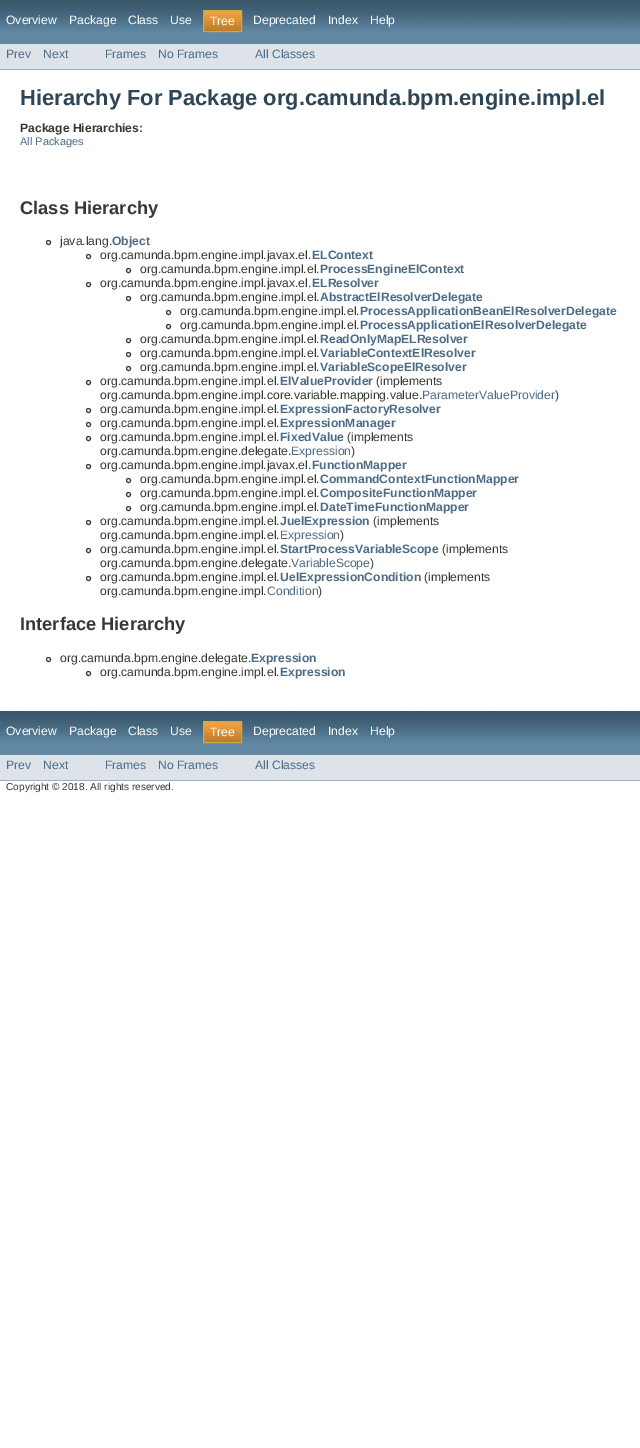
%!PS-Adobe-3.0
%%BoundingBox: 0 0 640 1448
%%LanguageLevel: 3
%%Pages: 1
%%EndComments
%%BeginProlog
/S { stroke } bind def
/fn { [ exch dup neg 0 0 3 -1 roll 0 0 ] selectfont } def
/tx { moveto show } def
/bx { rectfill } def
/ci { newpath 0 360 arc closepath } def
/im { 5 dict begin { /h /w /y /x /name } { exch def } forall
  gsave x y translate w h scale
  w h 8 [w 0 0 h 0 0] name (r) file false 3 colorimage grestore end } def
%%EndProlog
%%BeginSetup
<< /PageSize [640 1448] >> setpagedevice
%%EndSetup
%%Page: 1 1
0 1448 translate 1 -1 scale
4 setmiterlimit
1 setgray
0 0 640 1448 bx
(image0.raw) 0 0 640 44 im
/LiberationSans-Regular 12.15 fn
(Overview) 6 24 tx
(Package) 69 24 tx
(Class) 128 24 tx
(Use) 170 24 tx
(image1.raw) 204 11 37 20 im
0.788 0.667 0.267 setrgbcolor
203.5 10.5 38 21 rectstroke
1 setgray
(Tree) 210 25 tx
(Deprecated) 253 24 tx
(Index) 328 24 tx
(Help) 370 24 tx
0.871 0.89 0.914 setrgbcolor
0 44 640 25 bx
0.62 0.678 0.753 setrgbcolor
0 69 640 1 bx
0.298 0.42 0.529 setrgbcolor
(Prev) 6 58 tx
(Next) 43 58 tx
(Frames) 105 58 tx
(No Frames) 158 58 tx
(All Classes) 255 58 tx
/LiberationSans-Bold 21.9 fn
0.173 0.271 0.341 setrgbcolor
(Hierarchy For Package org.camunda.bpm.engine.impl.el) 20 105 tx
/LiberationSans-Bold 12.15 fn
0.208 0.22 0.2 setrgbcolor
(Package Hierarchies:) 20 132 tx
/LiberationSans-Regular 11 fn
0.298 0.42 0.529 setrgbcolor
(All Packages) 20 145 tx
/LiberationSans-Bold 18.25 fn
0.208 0.22 0.2 setrgbcolor
(Class Hierarchy) 20 214 tx
48.5 242.5 2 ci S
/LiberationSans-Regular 12.15 fn
(java.lang.) 60 245 tx
/LiberationSans-Bold 12.15 fn
0.298 0.42 0.529 setrgbcolor
(Object) 112 245 tx
0.208 0.22 0.2 setrgbcolor
88.5 256.5 2 ci S
/LiberationSans-Regular 12.15 fn
(org.camunda.bpm.engine.impl.javax.el.) 100 259 tx
/LiberationSans-Bold 12.15 fn
0.298 0.42 0.529 setrgbcolor
(ELContext) 312 259 tx
0.208 0.22 0.2 setrgbcolor
128.5 270.5 2 ci S
/LiberationSans-Regular 12.15 fn
(org.camunda.bpm.engine.impl.el.) 140 273 tx
/LiberationSans-Bold 12.15 fn
0.298 0.42 0.529 setrgbcolor
(ProcessEngineElContext) 320 273 tx
0.208 0.22 0.2 setrgbcolor
88.5 284.5 2 ci S
/LiberationSans-Regular 12.15 fn
(org.camunda.bpm.engine.impl.javax.el.) 100 287 tx
/LiberationSans-Bold 12.15 fn
0.298 0.42 0.529 setrgbcolor
(ELResolver) 312 287 tx
0.208 0.22 0.2 setrgbcolor
128.5 298.5 2 ci S
/LiberationSans-Regular 12.15 fn
(org.camunda.bpm.engine.impl.el.) 140 301 tx
/LiberationSans-Bold 12.15 fn
0.298 0.42 0.529 setrgbcolor
(AbstractElResolverDelegate) 320 301 tx
0.208 0.22 0.2 setrgbcolor
168.5 312.5 2 ci S
/LiberationSans-Regular 12.15 fn
(org.camunda.bpm.engine.impl.el.) 180 315 tx
/LiberationSans-Bold 12.15 fn
0.298 0.42 0.529 setrgbcolor
(ProcessApplicationBeanElResolverDelegate) 360 315 tx
0.208 0.22 0.2 setrgbcolor
168.5 326.5 2 ci S
/LiberationSans-Regular 12.15 fn
(org.camunda.bpm.engine.impl.el.) 180 329 tx
/LiberationSans-Bold 12.15 fn
0.298 0.42 0.529 setrgbcolor
(ProcessApplicationElResolverDelegate) 360 329 tx
0.208 0.22 0.2 setrgbcolor
128.5 340.5 2 ci S
/LiberationSans-Regular 12.15 fn
(org.camunda.bpm.engine.impl.el.) 140 343 tx
/LiberationSans-Bold 12.15 fn
0.298 0.42 0.529 setrgbcolor
(ReadOnlyMapELResolver) 320 343 tx
0.208 0.22 0.2 setrgbcolor
128.5 354.5 2 ci S
/LiberationSans-Regular 12.15 fn
(org.camunda.bpm.engine.impl.el.) 140 357 tx
/LiberationSans-Bold 12.15 fn
0.298 0.42 0.529 setrgbcolor
(VariableContextElResolver) 320 357 tx
0.208 0.22 0.2 setrgbcolor
128.5 368.5 2 ci S
/LiberationSans-Regular 12.15 fn
(org.camunda.bpm.engine.impl.el.) 140 371 tx
/LiberationSans-Bold 12.15 fn
0.298 0.42 0.529 setrgbcolor
(VariableScopeElResolver) 320 371 tx
0.208 0.22 0.2 setrgbcolor
88.5 382.5 2 ci S
/LiberationSans-Regular 12.15 fn
(org.camunda.bpm.engine.impl.el.) 100 385 tx
/LiberationSans-Bold 12.15 fn
0.298 0.42 0.529 setrgbcolor
(ElValueProvider) 280 385 tx
/LiberationSans-Regular 12.15 fn
0.208 0.22 0.2 setrgbcolor
(\(implements) 376 385 tx
(org.camunda.bpm.engine.impl.core.variable.mapping.value.) 100 399 tx
0.298 0.42 0.529 setrgbcolor
(ParameterValueProvider) 422 399 tx
0.208 0.22 0.2 setrgbcolor
(\)) 555 399 tx
88.5 410.5 2 ci S
(org.camunda.bpm.engine.impl.el.) 100 413 tx
/LiberationSans-Bold 12.15 fn
0.298 0.42 0.529 setrgbcolor
(ExpressionFactoryResolver) 280 413 tx
0.208 0.22 0.2 setrgbcolor
88.5 424.5 2 ci S
/LiberationSans-Regular 12.15 fn
(org.camunda.bpm.engine.impl.el.) 100 427 tx
/LiberationSans-Bold 12.15 fn
0.298 0.42 0.529 setrgbcolor
(ExpressionManager) 280 427 tx
0.208 0.22 0.2 setrgbcolor
88.5 438.5 2 ci S
/LiberationSans-Regular 12.15 fn
(org.camunda.bpm.engine.impl.el.) 100 441 tx
/LiberationSans-Bold 12.15 fn
0.298 0.42 0.529 setrgbcolor
(FixedValue) 280 441 tx
/LiberationSans-Regular 12.15 fn
0.208 0.22 0.2 setrgbcolor
(\(implements) 347 441 tx
(org.camunda.bpm.engine.delegate.) 100 455 tx
0.298 0.42 0.529 setrgbcolor
(Expression) 291 455 tx
0.208 0.22 0.2 setrgbcolor
(\)) 351 455 tx
88.5 466.5 2 ci S
(org.camunda.bpm.engine.impl.javax.el.) 100 469 tx
/LiberationSans-Bold 12.15 fn
0.298 0.42 0.529 setrgbcolor
(FunctionMapper) 312 469 tx
0.208 0.22 0.2 setrgbcolor
128.5 480.5 2 ci S
/LiberationSans-Regular 12.15 fn
(org.camunda.bpm.engine.impl.el.) 140 483 tx
/LiberationSans-Bold 12.15 fn
0.298 0.42 0.529 setrgbcolor
(CommandContextFunctionMapper) 320 483 tx
0.208 0.22 0.2 setrgbcolor
128.5 494.5 2 ci S
/LiberationSans-Regular 12.15 fn
(org.camunda.bpm.engine.impl.el.) 140 497 tx
/LiberationSans-Bold 12.15 fn
0.298 0.42 0.529 setrgbcolor
(CompositeFunctionMapper) 320 497 tx
0.208 0.22 0.2 setrgbcolor
128.5 508.5 2 ci S
/LiberationSans-Regular 12.15 fn
(org.camunda.bpm.engine.impl.el.) 140 511 tx
/LiberationSans-Bold 12.15 fn
0.298 0.42 0.529 setrgbcolor
(DateTimeFunctionMapper) 320 511 tx
0.208 0.22 0.2 setrgbcolor
88.5 522.5 2 ci S
/LiberationSans-Regular 12.15 fn
(org.camunda.bpm.engine.impl.el.) 100 525 tx
/LiberationSans-Bold 12.15 fn
0.298 0.42 0.529 setrgbcolor
(JuelExpression) 280 525 tx
/LiberationSans-Regular 12.15 fn
0.208 0.22 0.2 setrgbcolor
(\(implements) 373 525 tx
(org.camunda.bpm.engine.impl.el.) 100 539 tx
0.298 0.42 0.529 setrgbcolor
(Expression) 280 539 tx
0.208 0.22 0.2 setrgbcolor
(\)) 340 539 tx
88.5 550.5 2 ci S
(org.camunda.bpm.engine.impl.el.) 100 553 tx
/LiberationSans-Bold 12.15 fn
0.298 0.42 0.529 setrgbcolor
(StartProcessVariableScope) 280 553 tx
/LiberationSans-Regular 12.15 fn
0.208 0.22 0.2 setrgbcolor
(\(implements) 442 553 tx
(org.camunda.bpm.engine.delegate.) 100 567 tx
0.298 0.42 0.529 setrgbcolor
(VariableScope) 291 567 tx
0.208 0.22 0.2 setrgbcolor
(\)) 370 567 tx
88.5 578.5 2 ci S
(org.camunda.bpm.engine.impl.el.) 100 581 tx
/LiberationSans-Bold 12.15 fn
0.298 0.42 0.529 setrgbcolor
(UelExpressionCondition) 280 581 tx
/LiberationSans-Regular 12.15 fn
0.208 0.22 0.2 setrgbcolor
(\(implements) 424 581 tx
(org.camunda.bpm.engine.impl.) 100 595 tx
0.298 0.42 0.529 setrgbcolor
(Condition) 267 595 tx
0.208 0.22 0.2 setrgbcolor
(\)) 318 595 tx
/LiberationSans-Bold 18.25 fn
(Interface Hierarchy) 20 630 tx
48.5 659.5 2 ci S
/LiberationSans-Regular 12.15 fn
(org.camunda.bpm.engine.delegate.) 60 662 tx
/LiberationSans-Bold 12.15 fn
0.298 0.42 0.529 setrgbcolor
(Expression) 251 662 tx
0.208 0.22 0.2 setrgbcolor
88.5 673.5 2 ci S
/LiberationSans-Regular 12.15 fn
(org.camunda.bpm.engine.impl.el.) 100 676 tx
/LiberationSans-Bold 12.15 fn
0.298 0.42 0.529 setrgbcolor
(Expression) 280 676 tx
(image0.raw) 0 711 640 44 im
/LiberationSans-Regular 12.15 fn
1 setgray
(Overview) 6 735 tx
(Package) 69 735 tx
(Class) 128 735 tx
(Use) 170 735 tx
(image1.raw) 204 722 37 20 im
0.788 0.667 0.267 setrgbcolor
203.5 721.5 38 21 rectstroke
1 setgray
(Tree) 210 736 tx
(Deprecated) 253 735 tx
(Index) 328 735 tx
(Help) 370 735 tx
0.871 0.89 0.914 setrgbcolor
0 755 640 25 bx
0.62 0.678 0.753 setrgbcolor
0 780 640 1 bx
0.298 0.42 0.529 setrgbcolor
(Prev) 6 769 tx
(Next) 43 769 tx
(Frames) 105 769 tx
(No Frames) 158 769 tx
(All Classes) 255 769 tx
/LiberationSans-Regular 10.1 fn
0.208 0.22 0.2 setrgbcolor
(Copyright © 2018. All rights reserved.) 6 790 tx
showpage
%%EOF
